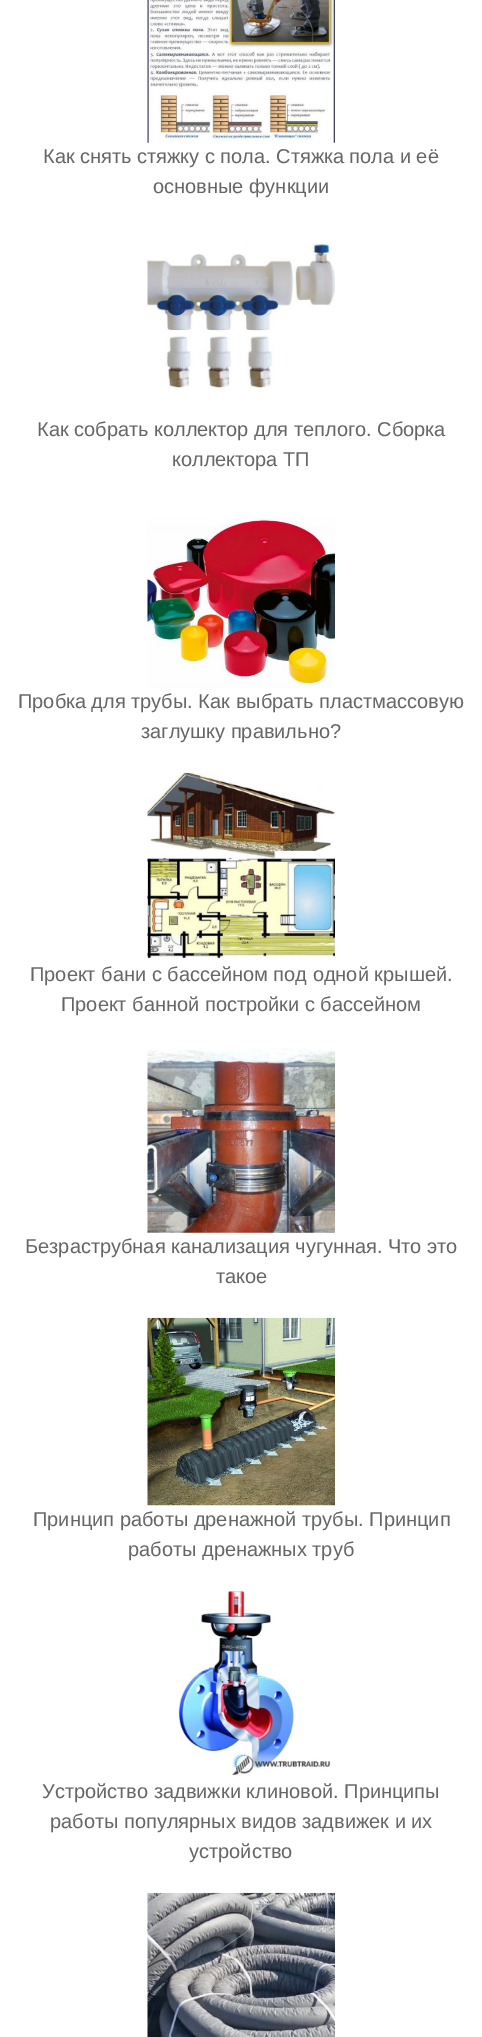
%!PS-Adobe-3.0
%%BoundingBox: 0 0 482 2037
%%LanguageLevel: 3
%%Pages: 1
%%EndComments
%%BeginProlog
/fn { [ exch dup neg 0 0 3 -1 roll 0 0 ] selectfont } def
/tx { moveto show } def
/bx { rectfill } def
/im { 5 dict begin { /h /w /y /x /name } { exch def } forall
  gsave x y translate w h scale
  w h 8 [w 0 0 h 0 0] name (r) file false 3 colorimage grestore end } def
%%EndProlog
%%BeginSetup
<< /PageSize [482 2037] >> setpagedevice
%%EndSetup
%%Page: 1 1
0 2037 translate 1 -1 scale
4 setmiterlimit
1 setgray
0 0 482 2037 bx
(image0.raw) 147 0 188 143 im
/LiberationSans-Regular 20 fn
0.4 setgray
(Как снять стяжку с пола. Стяжка пола и её) 43 163 tx
(основные функции) 153 193 tx
(image1.raw) 147 242 188 150 im
(Как собрать коллектор для теплого. Сборка) 37 436 tx
(коллектора ТП) 172 466 tx
(image2.raw) 147 517 188 171 im
(Пробка для трубы. Как выбрать пластмассовую) 18 708 tx
(заглушку правильно?) 141 738 tx
(image3.raw) 147 772 188 188 im
(Проект бани с бассейном под одной крышей.) 30 981 tx
(Проект банной постройки с бассейном) 61 1011 tx
(image4.raw) 147 1048 188 185 im
(Безраструбная канализация чугунная. Что это) 25 1253 tx
(такое) 216 1283 tx
(image5.raw) 147 1317 188 189 im
(Принцип работы дренажной трубы. Принцип) 33 1526 tx
(работы дренажных труб) 128 1556 tx
(image6.raw) 177 1590 153 186 im
(Устройство задвижки клиновой. Принципы) 42 1798 tx
(работы популярных видов задвижек и их) 50 1828 tx
(устройство) 189 1858 tx
(image7.raw) 147 1892 188 145 im
showpage
%%EOF
